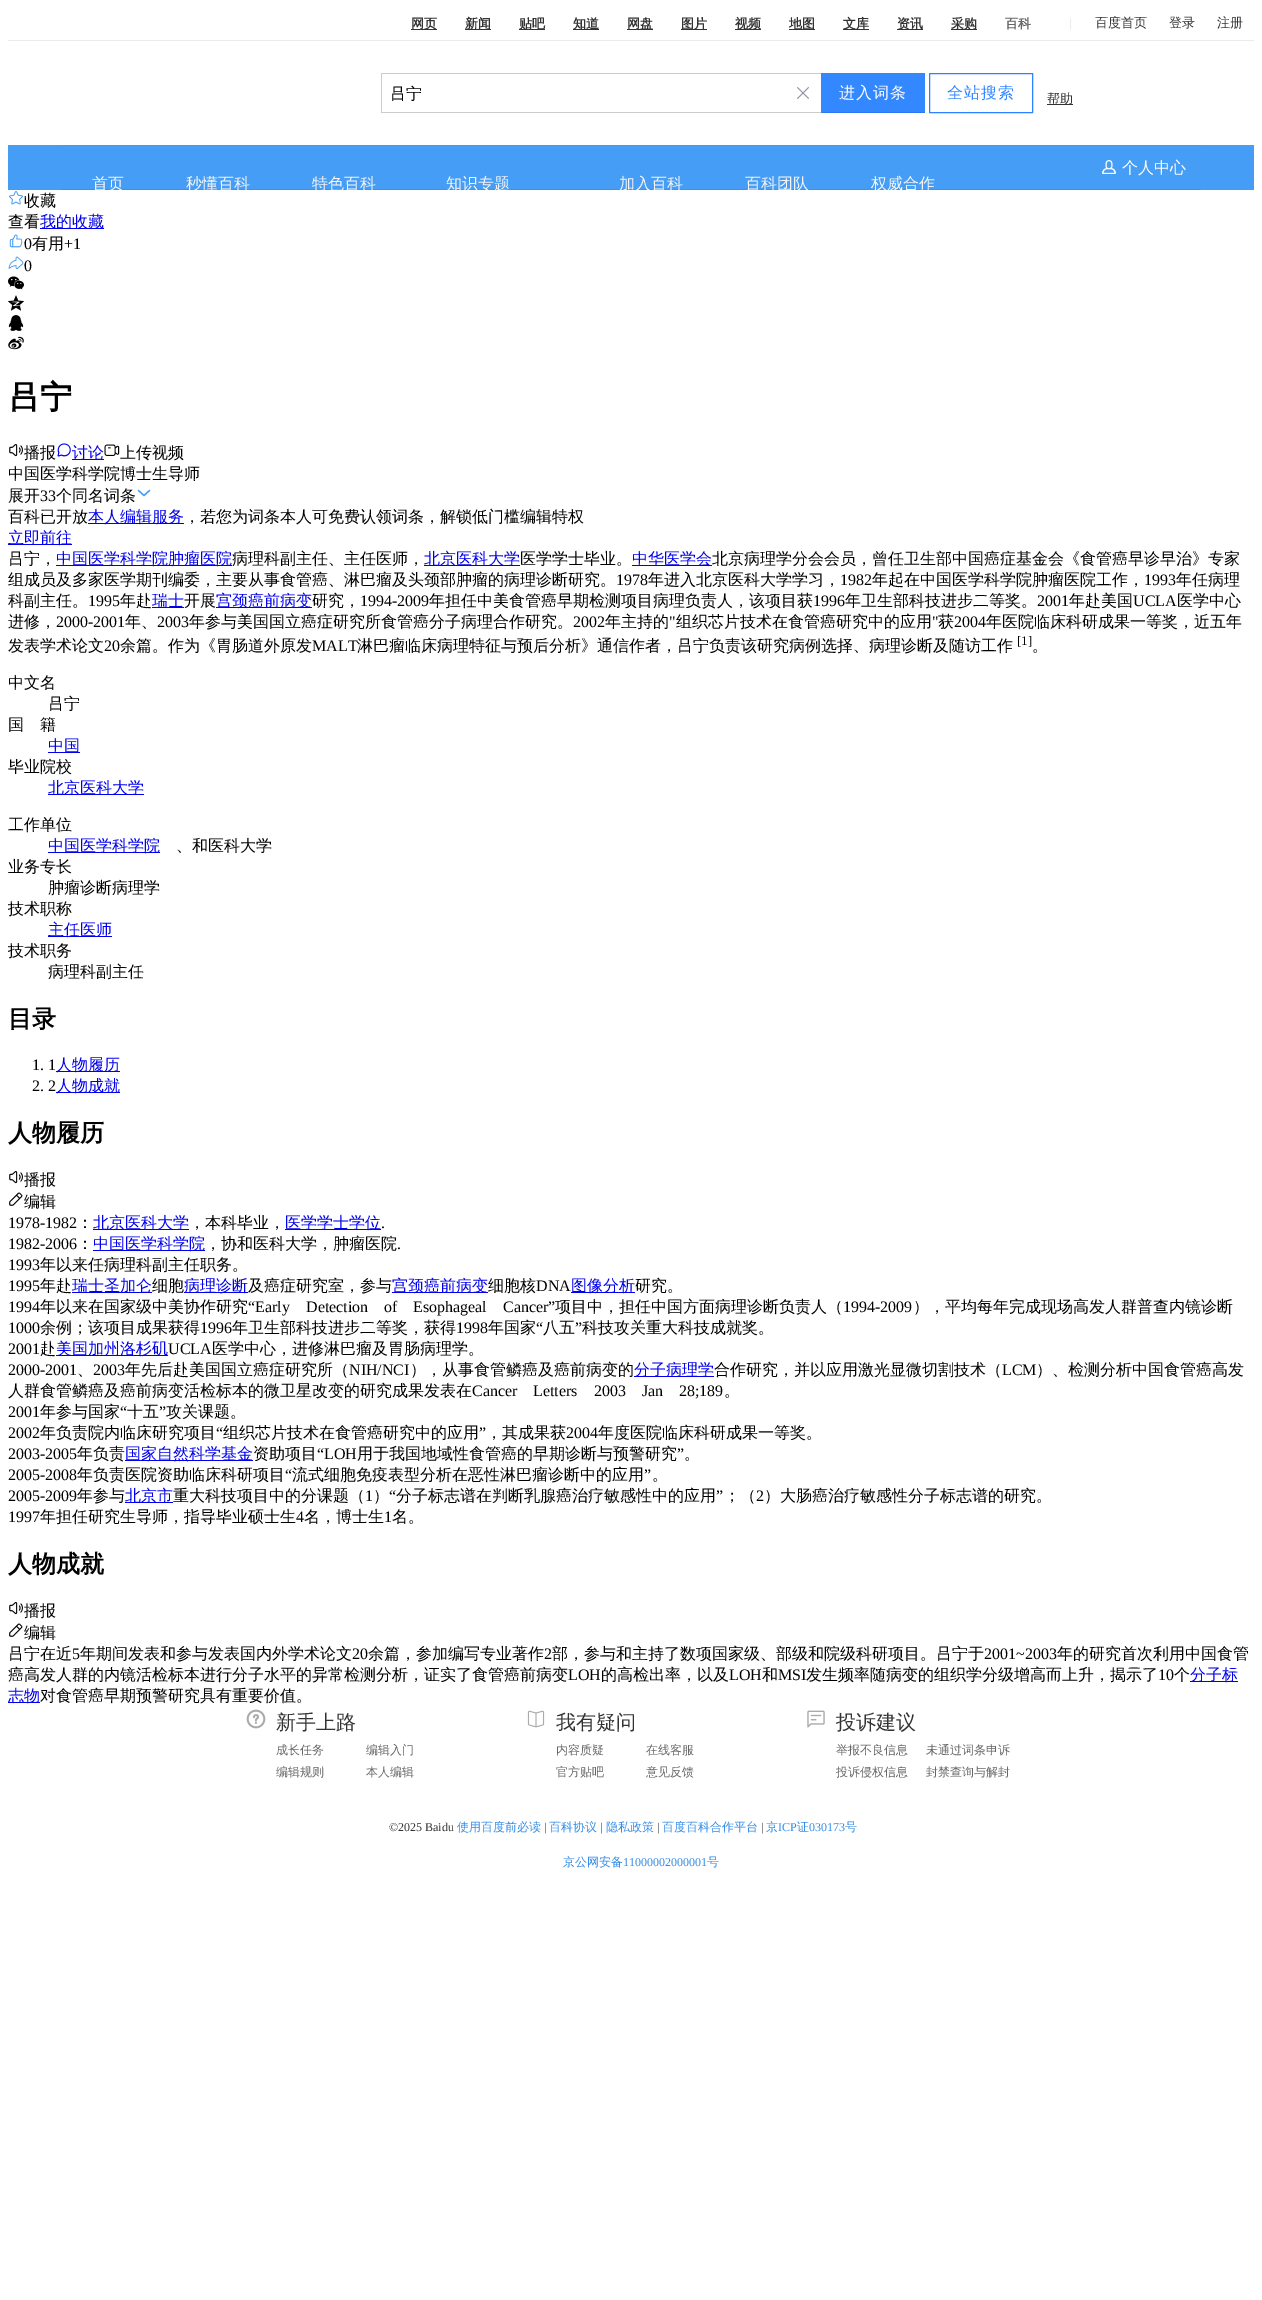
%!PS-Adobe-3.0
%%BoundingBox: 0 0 1262 2300
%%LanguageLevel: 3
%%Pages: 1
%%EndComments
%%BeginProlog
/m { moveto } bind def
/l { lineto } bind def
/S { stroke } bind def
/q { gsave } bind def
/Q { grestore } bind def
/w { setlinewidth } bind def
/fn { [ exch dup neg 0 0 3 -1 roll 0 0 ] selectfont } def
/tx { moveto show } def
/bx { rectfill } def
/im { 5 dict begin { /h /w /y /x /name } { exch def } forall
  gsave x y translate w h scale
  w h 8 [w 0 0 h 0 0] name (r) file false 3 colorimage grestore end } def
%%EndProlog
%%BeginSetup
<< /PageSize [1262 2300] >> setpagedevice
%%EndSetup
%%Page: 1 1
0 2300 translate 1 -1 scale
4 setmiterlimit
1 setgray
0 0 1262 2300 bx
0.922 setgray
8 40 1246 1 bx
0.2 setgray
411 29 26 1 bx
/WenQuanYiZenHei-Bold 13 fn
(网页) 411 28 tx
465 29 26 1 bx
(新闻) 465 28 tx
519 29 26 1 bx
(贴吧) 519 28 tx
573 29 26 1 bx
(知道) 573 28 tx
627 29 26 1 bx
(网盘) 627 28 tx
681 29 26 1 bx
(图片) 681 28 tx
735 29 26 1 bx
(视频) 735 28 tx
789 29 26 1 bx
(地图) 789 28 tx
843 29 26 1 bx
(文库) 843 28 tx
897 29 26 1 bx
(资讯) 897 28 tx
951 29 26 1 bx
(采购) 951 28 tx
0.4 setgray
(百科) 1005 28 tx
0.922 setgray
1070 18 1 12 bx
/WenQuanYiZenHei-Medium 13 fn
0.2 setgray
(百度首页) 1095 27 tx
(登录) 1169 27 tx
(注册) 1217 27 tx
0.8 setgray
381 73 440 1 bx
381 112 440 1 bx
381 73 1 40 bx
/WenQuanYiZenHei-Medium 16 fn
0 setgray
(吕宁) 390 99 tx
(image0.raw) 797 87 12 12 im
0.2 0.533 1 setrgbcolor
822 73 103 39 bx
0.176 0.471 0.957 setrgbcolor
821 112 104 1 bx
0.2 0.533 1 setrgbcolor
821 73 1 40 bx
1 setgray
839 98 m 1 0 (进入词条) ashow
0.18 0.51 1 setrgbcolor
929.5 73.5 103 39 rectstroke
0.2 0.533 1 setrgbcolor
947 98 m 1 0 (全站搜索) ashow
0.2 setgray
1047 104 26 1 bx
/WenQuanYiZenHei-Medium 13 fn
(帮助) 1047 103 tx
0.271 0.616 0.961 setrgbcolor
8 145 1246 45 bx
0.345 0.584 0.835 setrgbcolor
61 145 1140 1 bx
0.231 0.573 0.914 setrgbcolor
61 189 1140 1 bx
(image1.raw) 1102 160 14 14 im
/WenQuanYiZenHei-Medium 16 fn
1 setgray
(个人中心) 1122 173 tx
q
8 145 1246 45 rectclip
0.961 setgray
(首页) 92 189 tx
(秒懂百科) 186 189 tx
(特色百科) 312 189 tx
(知识专题) 446 189 tx
(加入百科) 619 189 tx
(百科团队) 745 189 tx
(权威合作) 871 189 tx
Q
(image2.raw) 9 191 14 14 im
0 setgray
(收藏) 24 206 tx
(查看) 8 227 tx
0 0 0.933 setrgbcolor
40 228 64 1 bx
(我的收藏) 40 227 tx
(image3.raw) 9 234 14 14 im
/LiberationSerif-Regular 16 fn
0 setgray
(0) 24 249 tx
/WenQuanYiZenHei-Medium 16 fn
(有用) 32 249 tx
/LiberationSerif-Regular 16 fn
(+1) 64 249 tx
(image4.raw) 8 256 16 13 im
(0) 24 271 tx
(image5.raw) 8 276 16 14 im
(image6.raw) 8 295 16 16 im
(image7.raw) 8 315 16 16 im
(image8.raw) 8 336 16 14 im
/WenQuanYiZenHei-Bold 32 fn
(吕宁) 8 408 tx
(image9.raw) 9 444 14 13 im
/WenQuanYiZenHei-Medium 16 fn
(播报) 24 458 tx
(image10.raw) 57 443 14 14 im
0 0 0.933 setrgbcolor
72 459 32 1 bx
(讨论) 72 458 tx
(image11.raw) 104 444 16 12 im
0 setgray
(上传视频) 120 458 tx
(中国医学科学院博士生导师) 8 479 tx
(展开) 8 501 tx
/LiberationSerif-Regular 16 fn
(33) 40 501 tx
/WenQuanYiZenHei-Medium 16 fn
(个同名词条) 56 501 tx
0.271 0.616 0.961 setrgbcolor
1.3 w
1 setlinecap
1 setlinejoin
149.5 490.5 m 144 495.5 l 138.5 490.5 l S
0 setgray
(百科已开放) 8 522 tx
0 0 0.933 setrgbcolor
88 523 96 1 bx
(本人编辑服务) 88 522 tx
0 setgray
(，若您为词条本人可免费认领词条，解锁低门槛编辑特权) 184 522 tx
0 0 0.933 setrgbcolor
8 544 64 1 bx
(立即前往) 8 543 tx
0 setgray
(吕宁，) 8 564 tx
0 0 0.933 setrgbcolor
56 565 176 1 bx
(中国医学科学院肿瘤医院) 56 564 tx
0 setgray
(病理科副主任、主任医师，) 232 564 tx
0 0 0.933 setrgbcolor
424 565 96 1 bx
(北京医科大学) 424 564 tx
0 setgray
(医学学士毕业。) 520 564 tx
0 0 0.933 setrgbcolor
632 565 80 1 bx
(中华医学会) 632 564 tx
0 setgray
(北京病理学分会会员，曾任卫生部中国癌症基金会《食管癌早诊早治》专家) 712 564 tx
(组成员及多家医学期刊编委，主要从事食管癌、淋巴瘤及头颈部肿瘤的病理诊断研究。) 8 585 tx
/LiberationSerif-Regular 16 fn
(1978) 616 585 tx
/WenQuanYiZenHei-Medium 16 fn
(年进入北京医科大学学习，) 648 585 tx
/LiberationSerif-Regular 16 fn
(1982) 840 585 tx
/WenQuanYiZenHei-Medium 16 fn
(年起在中国医学科学院肿瘤医院工作，) 872 585 tx
/LiberationSerif-Regular 16 fn
(1993) 1144 585 tx
/WenQuanYiZenHei-Medium 16 fn
(年任病理) 1176 585 tx
(科副主任。) 8 606 tx
/LiberationSerif-Regular 16 fn
(1995) 88 606 tx
/WenQuanYiZenHei-Medium 16 fn
(年赴) 120 606 tx
0 0 0.933 setrgbcolor
152 607 32 1 bx
(瑞士) 152 606 tx
0 setgray
(开展) 184 606 tx
0 0 0.933 setrgbcolor
216 607 96 1 bx
(宫颈癌前病变) 216 606 tx
0 setgray
(研究，) 312 606 tx
/LiberationSerif-Regular 16 fn
(1994-2009) 360 606 tx
/WenQuanYiZenHei-Medium 16 fn
(年担任中美食管癌早期检测项目病理负责人，该项目获) 429 606 tx
/LiberationSerif-Regular 16 fn
(1996) 813 606 tx
/WenQuanYiZenHei-Medium 16 fn
(年卫生部科技进步二等奖。) 845 606 tx
/LiberationSerif-Regular 16 fn
(2001) 1037 606 tx
/WenQuanYiZenHei-Medium 16 fn
(年赴美国) 1069 606 tx
/LiberationSerif-Regular 16 fn
(UCLA) 1133 606 tx
/WenQuanYiZenHei-Medium 16 fn
(医学中心) 1177 606 tx
(进修，) 8 627 tx
/LiberationSerif-Regular 16 fn
(2000-2001) 56 627 tx
/WenQuanYiZenHei-Medium 16 fn
(年、) 125 627 tx
/LiberationSerif-Regular 16 fn
(2003) 157 627 tx
/WenQuanYiZenHei-Medium 16 fn
(年参与美国国立癌症研究所食管癌分子病理合作研究。) 189 627 tx
/LiberationSerif-Regular 16 fn
(2002) 573 627 tx
/WenQuanYiZenHei-Medium 16 fn
(年主持的) 605 627 tx
/LiberationSerif-Regular 16 fn
(") 669 627 tx
/WenQuanYiZenHei-Medium 16 fn
(组织芯片技术在食管癌研究中的应用) 676 627 tx
/LiberationSerif-Regular 16 fn
(") 932 627 tx
/WenQuanYiZenHei-Medium 16 fn
(获) 938 627 tx
/LiberationSerif-Regular 16 fn
(2004) 954 627 tx
/WenQuanYiZenHei-Medium 16 fn
(年医院临床科研成果一等奖，近五年) 986 627 tx
(发表学术论文) 8 651 tx
/LiberationSerif-Regular 16 fn
(20) 104 651 tx
/WenQuanYiZenHei-Medium 16 fn
(余篇。作为《胃肠道外原发) 120 651 tx
/LiberationSerif-Regular 16 fn
(MALT) 312 651 tx
/WenQuanYiZenHei-Medium 16 fn
(淋巴瘤临床病理特征与预后分析》通信作者，吕宁负责该研究病例选择、病理诊断及随访工作) 357 651 tx
/LiberationSerif-Regular 13 fn
([1]) 1017 645 tx
/WenQuanYiZenHei-Medium 16 fn
(。) 1032 651 tx
(中文名) 8 688 tx
(吕宁) 48 709 tx
(国) 8 730 tx
(籍) 40 730 tx
0 0 0.933 setrgbcolor
48 752 32 1 bx
(中国) 48 751 tx
0 setgray
(毕业院校) 8 772 tx
0 0 0.933 setrgbcolor
48 794 96 1 bx
(北京医科大学) 48 793 tx
0 setgray
(工作单位) 8 830 tx
0 0 0.933 setrgbcolor
48 852 112 1 bx
(中国医学科学院) 48 851 tx
0 setgray
(、和医科大学) 176 851 tx
(业务专长) 8 872 tx
(肿瘤诊断病理学) 48 893 tx
(技术职称) 8 914 tx
0 0 0.933 setrgbcolor
48 936 64 1 bx
(主任医师) 48 935 tx
0 setgray
(技术职务) 8 956 tx
(病理科副主任) 48 977 tx
/WenQuanYiZenHei-Bold 24 fn
(目录) 8 1027 tx
/LiberationSerif-Regular 16 fn
(1. 1) 32 1070 tx
0 0 0.933 setrgbcolor
56 1071 64 1 bx
/WenQuanYiZenHei-Medium 16 fn
(人物履历) 56 1070 tx
/LiberationSerif-Regular 16 fn
0 setgray
(2. 2) 32 1091 tx
0 0 0.933 setrgbcolor
56 1092 64 1 bx
/WenQuanYiZenHei-Medium 16 fn
(人物成就) 56 1091 tx
/WenQuanYiZenHei-Bold 24 fn
0 setgray
(人物履历) 8 1141 tx
(image9.raw) 9 1171 14 13 im
/WenQuanYiZenHei-Medium 16 fn
(播报) 24 1185 tx
(image12.raw) 9 1192 14 14 im
(编辑) 24 1207 tx
/LiberationSerif-Regular 16 fn
(1978-1982) 8 1228 tx
/WenQuanYiZenHei-Medium 16 fn
(：) 77 1228 tx
0 0 0.933 setrgbcolor
93 1229 96 1 bx
(北京医科大学) 93 1228 tx
0 setgray
(，本科毕业，) 189 1228 tx
0 0 0.933 setrgbcolor
285 1229 96 1 bx
(医学学士学位) 285 1228 tx
/LiberationSerif-Regular 16 fn
0 setgray
(.) 381 1228 tx
(1982-2006) 8 1249 tx
/WenQuanYiZenHei-Medium 16 fn
(：) 77 1249 tx
0 0 0.933 setrgbcolor
93 1250 112 1 bx
(中国医学科学院) 93 1249 tx
0 setgray
(，协和医科大学，肿瘤医院) 205 1249 tx
/LiberationSerif-Regular 16 fn
(.) 397 1249 tx
(1993) 8 1270 tx
/WenQuanYiZenHei-Medium 16 fn
(年以来任病理科副主任职务。) 40 1270 tx
/LiberationSerif-Regular 16 fn
(1995) 8 1291 tx
/WenQuanYiZenHei-Medium 16 fn
(年赴) 40 1291 tx
0 0 0.933 setrgbcolor
72 1292 80 1 bx
(瑞士圣加仑) 72 1291 tx
0 setgray
(细胞) 152 1291 tx
0 0 0.933 setrgbcolor
184 1292 64 1 bx
(病理诊断) 184 1291 tx
0 setgray
(及癌症研究室，参与) 248 1291 tx
0 0 0.933 setrgbcolor
392 1292 96 1 bx
(宫颈癌前病变) 392 1291 tx
0 setgray
(细胞核) 488 1291 tx
/LiberationSerif-Regular 16 fn
(DNA) 536 1291 tx
0 0 0.933 setrgbcolor
571 1292 64 1 bx
/WenQuanYiZenHei-Medium 16 fn
(图像分析) 571 1291 tx
0 setgray
(研究。) 635 1291 tx
/LiberationSerif-Regular 16 fn
(1994) 8 1312 tx
/WenQuanYiZenHei-Medium 16 fn
(年以来在国家级中美协作研究) 40 1312 tx
/LiberationSerif-Regular 16 fn
(“Early) 248 1312 tx
(Detection) 306 1312 tx
(of) 384 1312 tx
(Esophageal) 413 1312 tx
(Cancer”) 503 1312 tx
/WenQuanYiZenHei-Medium 16 fn
(项目中，担任中国方面病理诊断负责人（) 555 1312 tx
/LiberationSerif-Regular 16 fn
(1994-2009) 843 1312 tx
/WenQuanYiZenHei-Medium 16 fn
(），平均每年完成现场高发人群普查内镜诊断) 913 1312 tx
/LiberationSerif-Regular 16 fn
(1000) 8 1333 tx
/WenQuanYiZenHei-Medium 16 fn
(余例；该项目成果获得) 40 1333 tx
/LiberationSerif-Regular 16 fn
(1996) 200 1333 tx
/WenQuanYiZenHei-Medium 16 fn
(年卫生部科技进步二等奖，获得) 232 1333 tx
/LiberationSerif-Regular 16 fn
(1998) 456 1333 tx
/WenQuanYiZenHei-Medium 16 fn
(年国家) 488 1333 tx
/LiberationSerif-Regular 16 fn
(“) 536 1333 tx
/WenQuanYiZenHei-Medium 16 fn
(八五) 543 1333 tx
/LiberationSerif-Regular 16 fn
(”) 575 1333 tx
/WenQuanYiZenHei-Medium 16 fn
(科技攻关重大科技成就奖。) 582 1333 tx
/LiberationSerif-Regular 16 fn
(2001) 8 1354 tx
/WenQuanYiZenHei-Medium 16 fn
(赴) 40 1354 tx
0 0 0.933 setrgbcolor
56 1355 112 1 bx
(美国加州洛杉矶) 56 1354 tx
/LiberationSerif-Regular 16 fn
0 setgray
(UCLA) 168 1354 tx
/WenQuanYiZenHei-Medium 16 fn
(医学中心，进修淋巴瘤及胃肠病理学。) 212 1354 tx
/LiberationSerif-Regular 16 fn
(2000-2001) 8 1375 tx
/WenQuanYiZenHei-Medium 16 fn
(、) 77 1375 tx
/LiberationSerif-Regular 16 fn
(2003) 93 1375 tx
/WenQuanYiZenHei-Medium 16 fn
(年先后赴美国国立癌症研究所（) 125 1375 tx
/LiberationSerif-Regular 16 fn
(NIH/NCI) 349 1375 tx
/WenQuanYiZenHei-Medium 16 fn
(），从事食管鳞癌及癌前病变的) 410 1375 tx
0 0 0.933 setrgbcolor
634 1376 80 1 bx
(分子病理学) 634 1375 tx
0 setgray
(合作研究，并以应用激光显微切割技术（) 714 1375 tx
/LiberationSerif-Regular 16 fn
(LCM) 1002 1375 tx
/WenQuanYiZenHei-Medium 16 fn
(）、检测分析中国食管癌高发) 1036 1375 tx
(人群食管鳞癌及癌前病变活检标本的微卫星改变的研究成果发表在) 8 1396 tx
/LiberationSerif-Regular 16 fn
(Cancer) 472 1396 tx
(Letters) 533 1396 tx
(2003) 594 1396 tx
(Jan) 642 1396 tx
(28;189) 679 1396 tx
/WenQuanYiZenHei-Medium 16 fn
(。) 724 1396 tx
/LiberationSerif-Regular 16 fn
(2001) 8 1417 tx
/WenQuanYiZenHei-Medium 16 fn
(年参与国家) 40 1417 tx
/LiberationSerif-Regular 16 fn
(“) 120 1417 tx
/WenQuanYiZenHei-Medium 16 fn
(十五) 127 1417 tx
/LiberationSerif-Regular 16 fn
(”) 159 1417 tx
/WenQuanYiZenHei-Medium 16 fn
(攻关课题。) 166 1417 tx
/LiberationSerif-Regular 16 fn
(2002) 8 1438 tx
/WenQuanYiZenHei-Medium 16 fn
(年负责院内临床研究项目) 40 1438 tx
/LiberationSerif-Regular 16 fn
(“) 216 1438 tx
/WenQuanYiZenHei-Medium 16 fn
(组织芯片技术在食管癌研究中的应用) 223 1438 tx
/LiberationSerif-Regular 16 fn
(”) 479 1438 tx
/WenQuanYiZenHei-Medium 16 fn
(，其成果获) 486 1438 tx
/LiberationSerif-Regular 16 fn
(2004) 566 1438 tx
/WenQuanYiZenHei-Medium 16 fn
(年度医院临床科研成果一等奖。) 598 1438 tx
/LiberationSerif-Regular 16 fn
(2003-2005) 8 1459 tx
/WenQuanYiZenHei-Medium 16 fn
(年负责) 77 1459 tx
0 0 0.933 setrgbcolor
125 1460 128 1 bx
(国家自然科学基金) 125 1459 tx
0 setgray
(资助项目) 253 1459 tx
/LiberationSerif-Regular 16 fn
(“LOH) 317 1459 tx
/WenQuanYiZenHei-Medium 16 fn
(用于我国地域性食管癌的早期诊断与预警研究) 357 1459 tx
/LiberationSerif-Regular 16 fn
(”) 677 1459 tx
/WenQuanYiZenHei-Medium 16 fn
(。) 684 1459 tx
/LiberationSerif-Regular 16 fn
(2005-2008) 8 1480 tx
/WenQuanYiZenHei-Medium 16 fn
(年负责医院资助临床科研项目) 77 1480 tx
/LiberationSerif-Regular 16 fn
(“) 285 1480 tx
/WenQuanYiZenHei-Medium 16 fn
(流式细胞免疫表型分析在恶性淋巴瘤诊断中的应用) 292 1480 tx
/LiberationSerif-Regular 16 fn
(”) 644 1480 tx
/WenQuanYiZenHei-Medium 16 fn
(。) 652 1480 tx
/LiberationSerif-Regular 16 fn
(2005-2009) 8 1501 tx
/WenQuanYiZenHei-Medium 16 fn
(年参与) 77 1501 tx
0 0 0.933 setrgbcolor
125 1502 48 1 bx
(北京市) 125 1501 tx
0 setgray
(重大科技项目中的分课题（) 173 1501 tx
/LiberationSerif-Regular 16 fn
(1) 365 1501 tx
/WenQuanYiZenHei-Medium 16 fn
(）) 373 1501 tx
/LiberationSerif-Regular 16 fn
(“) 389 1501 tx
/WenQuanYiZenHei-Medium 16 fn
(分子标志谱在判断乳腺癌治疗敏感性中的应用) 396 1501 tx
/LiberationSerif-Regular 16 fn
(”) 716 1501 tx
/WenQuanYiZenHei-Medium 16 fn
(；（) 724 1501 tx
/LiberationSerif-Regular 16 fn
(2) 756 1501 tx
/WenQuanYiZenHei-Medium 16 fn
(）大肠癌治疗敏感性分子标志谱的研究。) 764 1501 tx
/LiberationSerif-Regular 16 fn
(1997) 8 1522 tx
/WenQuanYiZenHei-Medium 16 fn
(年担任研究生导师，指导毕业硕士生) 40 1522 tx
/LiberationSerif-Regular 16 fn
(4) 296 1522 tx
/WenQuanYiZenHei-Medium 16 fn
(名，博士生) 304 1522 tx
/LiberationSerif-Regular 16 fn
(1) 384 1522 tx
/WenQuanYiZenHei-Medium 16 fn
(名。) 392 1522 tx
/WenQuanYiZenHei-Bold 24 fn
(人物成就) 8 1572 tx
(image9.raw) 9 1602 14 13 im
/WenQuanYiZenHei-Medium 16 fn
(播报) 24 1616 tx
(image12.raw) 9 1623 14 14 im
(编辑) 24 1638 tx
(吕宁在近) 8 1659 tx
/LiberationSerif-Regular 16 fn
(5) 72 1659 tx
/WenQuanYiZenHei-Medium 16 fn
(年期间发表和参与发表国内外学术论文) 80 1659 tx
/LiberationSerif-Regular 16 fn
(20) 352 1659 tx
/WenQuanYiZenHei-Medium 16 fn
(余篇，参加编写专业著作) 368 1659 tx
/LiberationSerif-Regular 16 fn
(2) 544 1659 tx
/WenQuanYiZenHei-Medium 16 fn
(部，参与和主持了数项国家级、部级和院级科研项目。吕宁于) 552 1659 tx
/LiberationSerif-Regular 16 fn
(2001~2003) 984 1659 tx
/WenQuanYiZenHei-Medium 16 fn
(年的研究首次利用中国食管) 1057 1659 tx
(癌高发人群的内镜活检标本进行分子水平的异常检测分析，证实了食管癌前病变) 8 1680 tx
/LiberationSerif-Regular 16 fn
(LOH) 568 1680 tx
/WenQuanYiZenHei-Medium 16 fn
(的高检出率，以及) 601 1680 tx
/LiberationSerif-Regular 16 fn
(LOH) 729 1680 tx
/WenQuanYiZenHei-Medium 16 fn
(和) 762 1680 tx
/LiberationSerif-Regular 16 fn
(MSI) 778 1680 tx
/WenQuanYiZenHei-Medium 16 fn
(发生频率随病变的组织学分级增高而上升，揭示了) 806 1680 tx
/LiberationSerif-Regular 16 fn
(10) 1158 1680 tx
/WenQuanYiZenHei-Medium 16 fn
(个) 1174 1680 tx
0 0 0.933 setrgbcolor
1190 1681 48 1 bx
(分子标) 1190 1680 tx
8 1702 32 1 bx
(志物) 8 1701 tx
0 setgray
(对食管癌早期预警研究具有重要价值。) 40 1701 tx
(image13.raw) 246 1709 20 20 im
/WenQuanYiZenHei-Medium 20 fn
0.2 setgray
(新手上路) 276 1729 tx
/WenQuanYiZenHei-Medium 12 fn
0.4 setgray
(成长任务) 276 1754 tx
(编辑入门) 366 1754 tx
(编辑规则) 276 1776 tx
(本人编辑) 366 1776 tx
(image14.raw) 527 1710 18 18 im
/WenQuanYiZenHei-Medium 20 fn
0.2 setgray
(我有疑问) 556 1729 tx
/WenQuanYiZenHei-Medium 12 fn
0.4 setgray
(内容质疑) 556 1754 tx
(在线客服) 646 1754 tx
(官方贴吧) 556 1776 tx
(意见反馈) 646 1776 tx
(image15.raw) 807 1710 18 18 im
/WenQuanYiZenHei-Medium 20 fn
0.2 setgray
(投诉建议) 836 1729 tx
/WenQuanYiZenHei-Medium 12 fn
0.4 setgray
(举报不良信息) 836 1754 tx
(未通过词条申诉) 926 1754 tx
(投诉侵权信息) 836 1776 tx
(封禁查询与解封) 926 1776 tx
/LiberationSerif-Regular 12 fn
0.2 setgray
(©2025 Baidu) 389 1831 tx
/WenQuanYiZenHei-Medium 12 fn
0.2 0.553 0.902 setrgbcolor
(使用百度前必读) 457 1831 tx
/LiberationSerif-Regular 12 fn
0.2 setgray
(|) 544 1831 tx
/WenQuanYiZenHei-Medium 12 fn
0.2 0.553 0.902 setrgbcolor
(百科协议) 549 1831 tx
/LiberationSerif-Regular 12 fn
0.2 setgray
(|) 600 1831 tx
/WenQuanYiZenHei-Medium 12 fn
0.2 0.553 0.902 setrgbcolor
(隐私政策) 606 1831 tx
/LiberationSerif-Regular 12 fn
0.2 setgray
(|) 657 1831 tx
/WenQuanYiZenHei-Medium 12 fn
0.2 0.553 0.902 setrgbcolor
(百度百科合作平台) 662 1831 tx
/LiberationSerif-Regular 12 fn
0.2 setgray
(|) 761 1831 tx
/WenQuanYiZenHei-Medium 12 fn
0.2 0.553 0.902 setrgbcolor
(京) 766 1831 tx
/LiberationSerif-Regular 12 fn
(ICP) 778 1831 tx
/WenQuanYiZenHei-Medium 12 fn
(证) 797 1831 tx
/LiberationSerif-Regular 12 fn
(030173) 809 1831 tx
/WenQuanYiZenHei-Medium 12 fn
(号) 845 1831 tx
(京公网安备) 563 1866 tx
/LiberationSerif-Regular 12 fn
(11000002000001) 623 1866 tx
/WenQuanYiZenHei-Medium 12 fn
(号) 707 1866 tx
showpage
%%EOF
